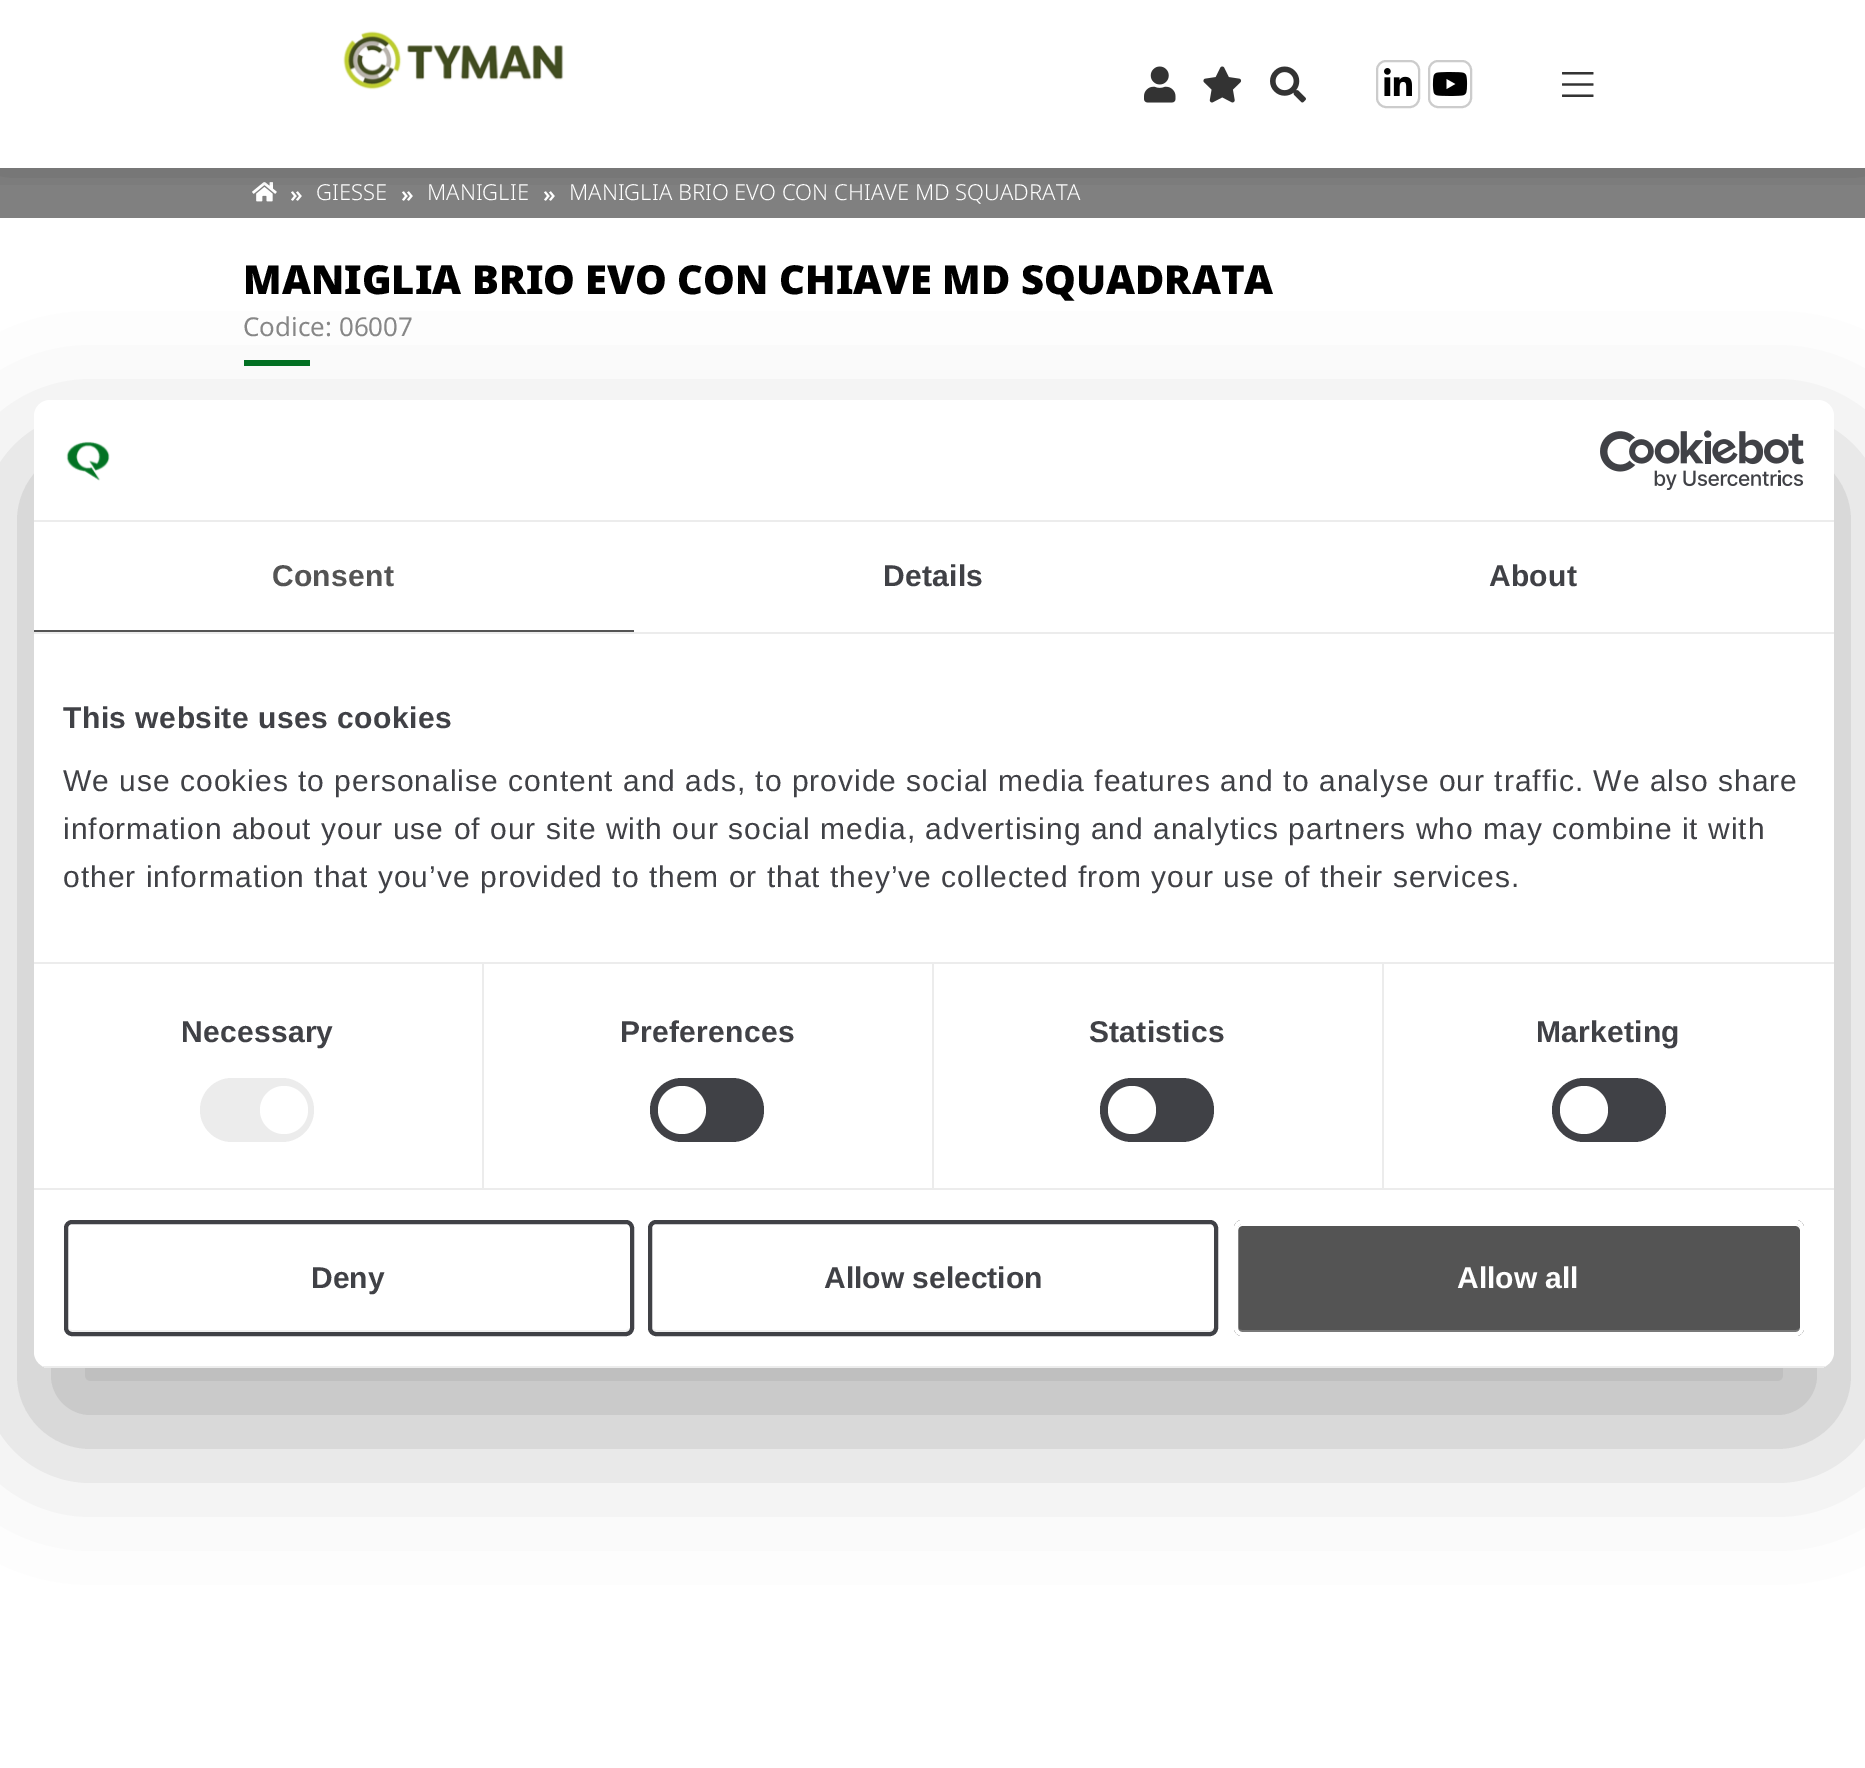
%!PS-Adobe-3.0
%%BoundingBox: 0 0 1865 1768
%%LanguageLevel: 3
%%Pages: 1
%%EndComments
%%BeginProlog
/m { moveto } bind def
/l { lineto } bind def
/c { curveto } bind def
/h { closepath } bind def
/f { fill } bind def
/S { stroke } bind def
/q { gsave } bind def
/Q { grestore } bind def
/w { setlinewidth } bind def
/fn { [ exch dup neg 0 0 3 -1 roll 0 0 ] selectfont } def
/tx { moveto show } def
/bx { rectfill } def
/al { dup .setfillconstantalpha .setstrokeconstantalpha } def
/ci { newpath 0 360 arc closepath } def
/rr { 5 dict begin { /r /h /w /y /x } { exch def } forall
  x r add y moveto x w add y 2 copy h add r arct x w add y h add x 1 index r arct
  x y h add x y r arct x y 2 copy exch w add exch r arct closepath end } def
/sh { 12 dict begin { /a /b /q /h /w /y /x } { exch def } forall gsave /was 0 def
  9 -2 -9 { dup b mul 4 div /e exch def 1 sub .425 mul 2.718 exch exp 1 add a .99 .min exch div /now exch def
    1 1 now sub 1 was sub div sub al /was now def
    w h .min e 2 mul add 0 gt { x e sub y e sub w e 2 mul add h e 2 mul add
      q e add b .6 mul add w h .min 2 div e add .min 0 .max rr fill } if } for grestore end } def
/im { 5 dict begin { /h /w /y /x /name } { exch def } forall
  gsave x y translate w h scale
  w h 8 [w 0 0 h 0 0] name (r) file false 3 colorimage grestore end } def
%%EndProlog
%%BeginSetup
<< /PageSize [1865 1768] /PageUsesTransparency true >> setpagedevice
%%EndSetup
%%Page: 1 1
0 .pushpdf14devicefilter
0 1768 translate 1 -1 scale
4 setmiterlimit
1 setgray
0 0 1865 1768 bx
0.502 setgray
0 168 1865 50 bx
(image7.raw) 252 182 25 20 im
q
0 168 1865 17 rectclip
0 setgray
0 -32 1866 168 0 24 1 sh
Q
(image0.raw) 343 31 221 59 im
(image1.raw) 1144 66 32 37 im
(image2.raw) 1203 66 39 37 im
(image3.raw) 1270 66 36 37 im
0.8 setgray
2 w
1377 61 42 46 9 rr S
(image4.raw) 1384 68 28 28 im
1429 61 42 46 9 rr S
(image5.raw) 1432 72 36 24 im
(image6.raw) 1562 72 32 25 im
/NotoSans-SemiBold 22 fn
1 setgray
(») 290 202 tx
/NotoSans-Light 22 fn
(GIESSE) 316 200 tx
/NotoSans-SemiBold 22 fn
(») 401 202 tx
/NotoSans-Light 22 fn
(MANIGLIE) 427 200 tx
/NotoSans-SemiBold 22 fn
(») 543 202 tx
/NotoSans-Light 22 fn
(MANIGLIA BRIO EVO CON CHIAVE MD SQUADRATA) 569 200 tx
/NotoSans-Black 40 fn
0 setgray
(MANIGLIA BRIO EVO CON CHIAVE MD SQUADRATA) 243 294 tx
/NotoSans-Regular 26 fn
0.533 setgray
(Codice: 06007) 243 336 tx
0.008 0.447 0.137 setrgbcolor
244 360 66 6 bx
0 setgray
34 464 1800 968 16 68 0.3 sh
1 setgray
34 400 1800 968 16 rr f
0.925 setgray
34 520 1800 2 bx
(image8.raw) 66 441 44 40 im
(image9.raw) 1600 430 204 60 im
34 632 1800 2 bx
0.329 setgray
34 630 600 2 bx
/LiberationSans-Bold 30 fn
272 586 m 0.25 0 (Consent) ashow
0.251 0.255 0.275 setrgbcolor
883 586 m 0.25 0 (Details) ashow
1489 586 m 0.25 0 (About) ashow
0.925 setgray
34 962 1800 2 bx
0.251 0.255 0.275 setrgbcolor
63 728 m 0.5 0 (This website uses cookies) ashow
/LiberationSans-Regular 30 fn
63 791 m 1 0 (We use cookies to personalise content and ads, to provide social media features and to analyse our traffic. We also share) ashow
63 839 m 1 0 (information about your use of our site with our social media, advertising and analytics partners who may combine it with) ashow
63 887 m 1 0 (other information that you’ve provided to them or that they’ve collected from your use of their services.) ashow
0.925 setgray
34 1188 1800 2 bx
482 964 2 224 bx
/LiberationSans-Bold 30 fn
0.251 0.255 0.275 setrgbcolor
181 1042 m 0.25 0 (Necessary) ashow
0.925 setgray
200 1078 114 64 32 rr f
1 setgray
284 1110 24 ci f
0.925 setgray
932 964 2 224 bx
0.251 0.255 0.275 setrgbcolor
620 1042 m 0.25 0 (Preferences) ashow
650 1078 114 64 32 rr f
1 setgray
682 1110 24 ci f
0.925 setgray
1382 964 2 224 bx
0.251 0.255 0.275 setrgbcolor
1089 1042 m 0.25 0 (Statistics) ashow
1100 1078 114 64 32 rr f
1 setgray
1132 1110 24 ci f
0.251 0.255 0.275 setrgbcolor
1536 1042 m 0.25 0 (Marketing) ashow
1552 1078 114 64 32 rr f
1 setgray
1584 1110 24 ci f
q
34 400 1800 968 16 rr clip newpath
0.925 setgray
34 1366 1800 2 bx
Q
0.941 setgray
68 1327 m 68 1329 70 1330 72 1330 c 626 1330 l 628 1330 630 1329 630 1327 c 630 1330 629 1332 626 1332 c 72 1332 l 69 1332 68 1330 68 1327 c h f
0.251 0.255 0.275 setrgbcolor
4 w
66 1222 566 112 6 rr S
(Deny) 311 1288 tx
0.941 setgray
652 1327 m 652 1330 653 1332 656 1332 c 1210 1332 l 1213 1332 1214 1330 1214 1327 c 1214 1329 1212 1330 1210 1330 c 656 1330 l 654 1330 652 1329 652 1327 c h f
0.251 0.255 0.275 setrgbcolor
650 1222 566 112 6 rr S
(Allow selection) 824 1288 tx
0.329 setgray
1234 1220 570 116 8 rr f
0.471 setgray
1238 1327 m 1238 1330 1239 1332 1242 1332 c 1796 1332 l 1799 1332 1800 1330 1800 1327 c 1800 1329 1798 1330 1796 1330 c 1242 1330 l 1240 1330 1238 1329 1238 1327 c h f
1 setgray
1242 1226 m 1796 1226 l 1798 1226 1800 1228 1800 1230 c 1800 1228 l 1800 1226 1798 1224 1796 1224 c 1242 1224 l 1240 1224 1238 1226 1238 1228 c 1238 1230 l 1238 1228 1240 1226 1242 1226 c h f
1236 1222 566 112 6 rr S
(Allow all) 1457 1288 tx
.poppdf14devicefilter showpage
%%EOF
